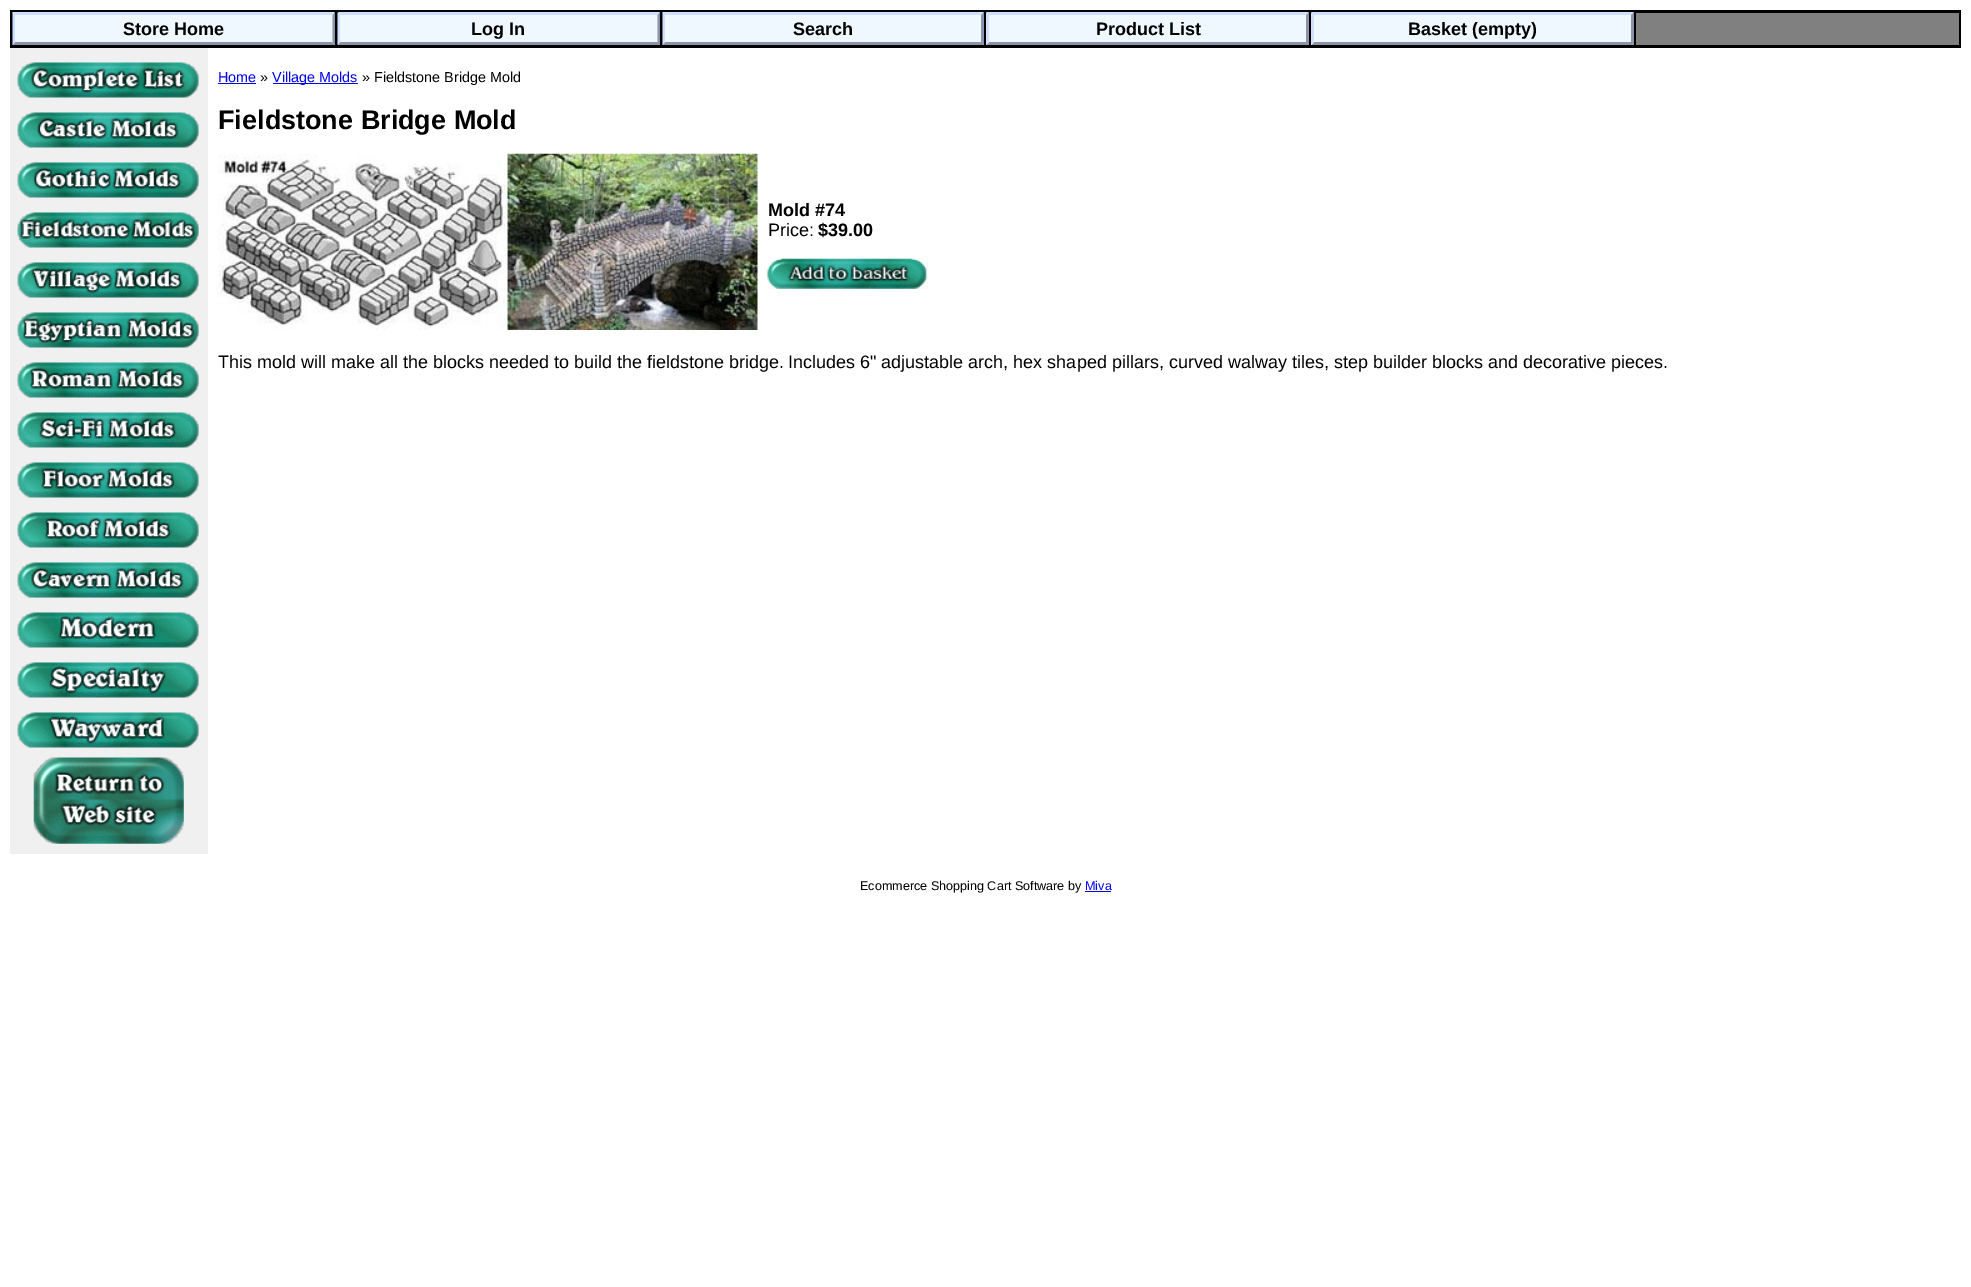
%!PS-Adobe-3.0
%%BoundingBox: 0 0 1971 1287
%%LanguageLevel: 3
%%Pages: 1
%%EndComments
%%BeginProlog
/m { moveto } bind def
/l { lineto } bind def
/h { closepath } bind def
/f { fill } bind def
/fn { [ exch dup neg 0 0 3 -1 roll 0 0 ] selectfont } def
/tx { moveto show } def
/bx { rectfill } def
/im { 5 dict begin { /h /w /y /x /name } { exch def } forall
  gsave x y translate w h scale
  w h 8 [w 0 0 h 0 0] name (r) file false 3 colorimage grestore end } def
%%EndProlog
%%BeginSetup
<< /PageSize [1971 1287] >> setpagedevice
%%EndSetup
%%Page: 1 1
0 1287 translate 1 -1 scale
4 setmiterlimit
1 setgray
0 0 1971 1287 bx
0 setgray
10 10 1951 38 bx
0.941 0.973 1 setrgbcolor
13 13 322 32 bx
0.816 0.878 1 setrgbcolor
12 12 m 335 12 l 332 15 l 15 15 l h f
0.545 0.584 0.667 setrgbcolor
335 12.5 m 335 45 l 332.5 42.5 l 332.5 15 l h f
335 45 m 12 45 l 15 42 l 332 42 l h f
0.816 0.878 1 setrgbcolor
12.5 45 m 12.5 12.5 l 15 15 l 15 42.5 l h f
/LiberationSans-Bold 18 fn
0 setgray
(Store Home) 123 35 tx
0.941 0.973 1 setrgbcolor
338 13 322 32 bx
0.816 0.878 1 setrgbcolor
338 12 m 660 12 l 658 15 l 340 15 l h f
0.545 0.584 0.667 setrgbcolor
660 12.5 m 660 45 l 657.5 42.5 l 657.5 15 l h f
660 45 m 338 45 l 340 42 l 658 42 l h f
0.816 0.878 1 setrgbcolor
337.5 45 m 337.5 12.5 l 340 15 l 340 42.5 l h f
0 setgray
(Log In) 471 35 tx
0.941 0.973 1 setrgbcolor
663 13 321 32 bx
0.816 0.878 1 setrgbcolor
662 12 m 984 12 l 981 15 l 665 15 l h f
0.545 0.584 0.667 setrgbcolor
984 12.5 m 984 45 l 981 42.5 l 981 15 l h f
984 45 m 662 45 l 665 42 l 981 42 l h f
0.816 0.878 1 setrgbcolor
662.5 45 m 662.5 12.5 l 665 15 l 665 42.5 l h f
0 setgray
(Search) 793 35 tx
0.941 0.973 1 setrgbcolor
986 13 323 32 bx
0.816 0.878 1 setrgbcolor
986 12 m 1309 12 l 1306 15 l 989 15 l h f
0.545 0.584 0.667 setrgbcolor
1309 12.5 m 1309 45 l 1306 42.5 l 1306 15 l h f
1309 45 m 986 45 l 989 42 l 1306 42 l h f
0.816 0.878 1 setrgbcolor
986 45 m 986 12.5 l 989 15 l 989 42.5 l h f
0 setgray
(Product List) 1096 35 tx
0.941 0.973 1 setrgbcolor
1311 13 323 32 bx
0.816 0.878 1 setrgbcolor
1311 12 m 1634 12 l 1631 15 l 1314 15 l h f
0.545 0.584 0.667 setrgbcolor
1634 12.5 m 1634 45 l 1631 42.5 l 1631 15 l h f
1634 45 m 1311 45 l 1314 42 l 1631 42 l h f
0.816 0.878 1 setrgbcolor
1311 45 m 1311 12.5 l 1314 15 l 1314 42.5 l h f
0 setgray
(Basket \(empty\)) 1408 35 tx
0.502 setgray
1636 13 323 32 bx
0.941 setgray
10 48 198 806 bx
(image0.raw) 17 62 182 36 im
(image1.raw) 17 112 182 36 im
(image2.raw) 17 162 182 36 im
(image3.raw) 17 212 182 36 im
(image4.raw) 17 262 182 36 im
(image5.raw) 17 312 182 36 im
(image6.raw) 17 362 182 36 im
(image7.raw) 17 412 182 36 im
(image8.raw) 17 462 182 36 im
(image9.raw) 17 512 182 36 im
(image10.raw) 17 562 182 36 im
(image11.raw) 17 612 182 36 im
(image12.raw) 17 662 182 36 im
(image13.raw) 17 712 182 36 im
(image14.raw) 33 757 151 87 im
/LiberationSans-Regular 14.4 fn
0 0 0.933 setrgbcolor
(Home) 218 82 tx
218 83 38 1 bx
0 setgray
(») 260 82 tx
0 0 0.933 setrgbcolor
273 83 85 1 bx
(Village Molds) 272 82 tx
0 setgray
(» Fieldstone Bridge Mold) 362 82 tx
/LiberationSans-Bold 27 fn
(Fieldstone Bridge Mold) 218 129 tx
(image15.raw) 217 153 541 177 im
/LiberationSans-Bold 18 fn
(Mold #74) 768 216 tx
/LiberationSans-Regular 18 fn
(Price:) 768 236 tx
/LiberationSans-Bold 18 fn
($39.00) 818 236 tx
0.937 setgray
768 259 160 30 bx
(image16.raw) 767 258 161 31 im
/LiberationSans-Regular 18 fn
0 setgray
(This mold will make all the blocks needed to build the fieldstone bridge.) 218 368 tx
(Includes 6" adjustable arch, hex shaped pillars, curved walway tiles,) 788 368 tx
(step builder blocks and decorative pieces.) 1334 368 tx
/LiberationSans-Regular 12.6 fn
(Ecommerce Shopping Cart Software by) 860 890 tx
0 0 0.933 setrgbcolor
(Miva) 1085 890 tx
1085 891 26 1 bx
showpage
%%EOF
